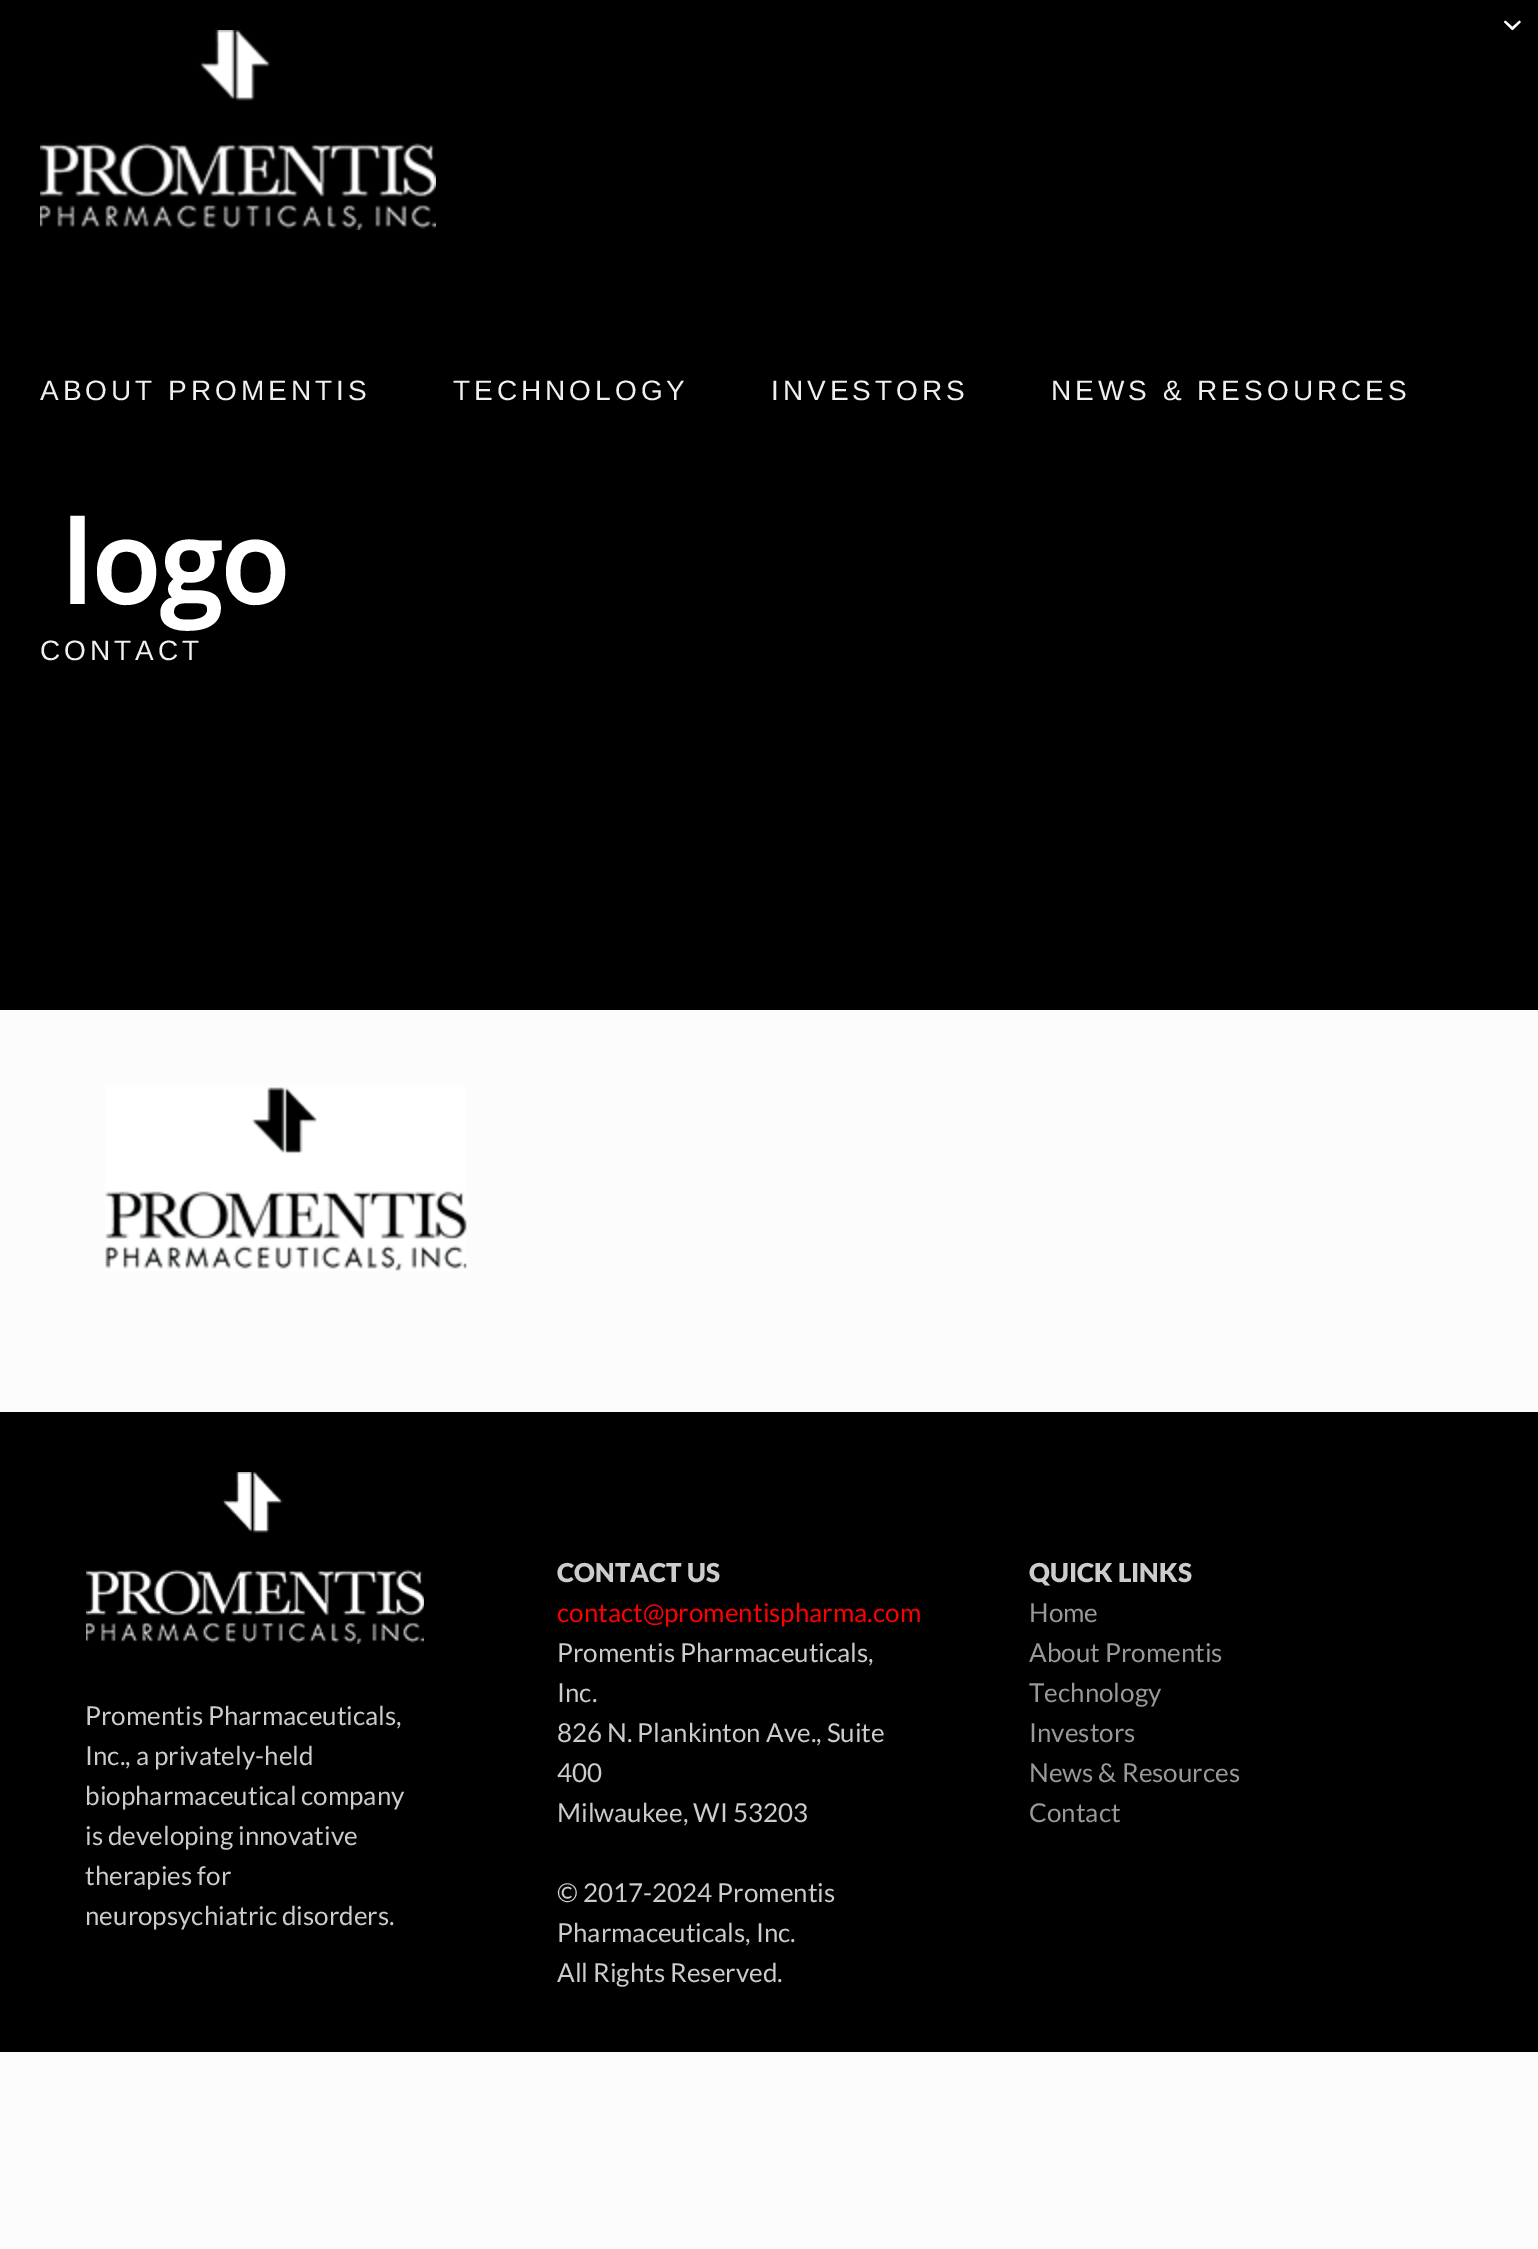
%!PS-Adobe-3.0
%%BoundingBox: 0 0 1538 2249
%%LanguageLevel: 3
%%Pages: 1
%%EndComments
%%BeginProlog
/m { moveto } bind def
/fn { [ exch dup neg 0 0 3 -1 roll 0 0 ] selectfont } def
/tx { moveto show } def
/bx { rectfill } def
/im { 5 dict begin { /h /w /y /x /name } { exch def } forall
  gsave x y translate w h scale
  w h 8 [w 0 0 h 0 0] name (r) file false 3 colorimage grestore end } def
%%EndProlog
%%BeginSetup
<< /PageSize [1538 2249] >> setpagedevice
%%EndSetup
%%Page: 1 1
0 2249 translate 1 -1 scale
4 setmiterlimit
0.988 setgray
0 0 1538 2249 bx
0 setgray
0 0 1538 1010 bx
(image0.raw) 1504 20 17 11 im
(image1.raw) 40 30 396 200 im
/LiberationSans-Regular 28 fn
0.937 setgray
40 400 m 4 0 (ABOUT PROMENTIS) ashow
453 400 m 4 0 (TECHNOLOGY) ashow
771 400 m 4 0 (INVESTORS) ashow
1051 400 m 4 0 (NEWS & RESOURCES) ashow
40 660 m 4 0 (CONTACT) ashow
/OpenSans-Bold 112 fn
1 setgray
(logo) 61 604 tx
(image2.raw) 105 1087 362 184 im
0 setgray
0 1412 1538 640 bx
(image3.raw) 86 1472 338 172 im
/Lato-Regular 26 fn
0.8 setgray
(Promentis Pharmaceuticals,) 85 1725 tx
(Inc., a privately-held) 85 1765 tx
(biopharmaceutical company) 85 1805 tx
(is developing innovative) 85 1845 tx
(therapies for) 85 1885 tx
(neuropsychiatric disorders.) 85 1925 tx
/Lato-Black 26 fn
(CONTACT US) 557 1582 tx
/Lato-Regular 26 fn
1 0 0 setrgbcolor
(contact@promentispharma.com) 557 1622 tx
0.8 setgray
(Promentis Pharmaceuticals,) 557 1662 tx
(Inc.) 557 1702 tx
(826 N. Plankinton Ave., Suite) 557 1742 tx
(400) 557 1782 tx
(Milwaukee, WI 53203) 557 1822 tx
(© 2017-2024 Promentis) 557 1902 tx
(Pharmaceuticals, Inc.) 557 1942 tx
(All Rights Reserved.) 557 1982 tx
/Lato-Black 26 fn
(QUICK LINKS) 1029 1582 tx
/Lato-Regular 26 fn
0.6 setgray
(Home) 1029 1622 tx
(About Promentis) 1029 1662 tx
(Technology) 1029 1702 tx
(Investors) 1029 1742 tx
(News & Resources) 1029 1782 tx
(Contact) 1029 1822 tx
showpage
%%EOF
